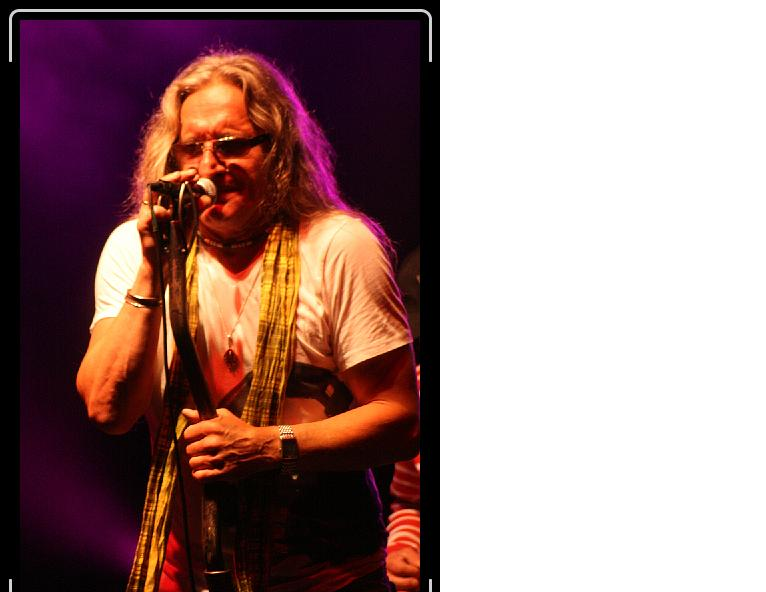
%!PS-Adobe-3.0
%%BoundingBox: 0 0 766 592
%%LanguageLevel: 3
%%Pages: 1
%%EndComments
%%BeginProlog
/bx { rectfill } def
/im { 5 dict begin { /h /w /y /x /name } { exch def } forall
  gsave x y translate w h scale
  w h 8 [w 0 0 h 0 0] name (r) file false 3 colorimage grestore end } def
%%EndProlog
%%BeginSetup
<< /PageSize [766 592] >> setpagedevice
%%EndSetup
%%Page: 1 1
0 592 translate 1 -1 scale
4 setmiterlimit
1 setgray
0 0 766 592 bx
(image0.raw) 0 0 440 592 im
showpage
%%EOF
